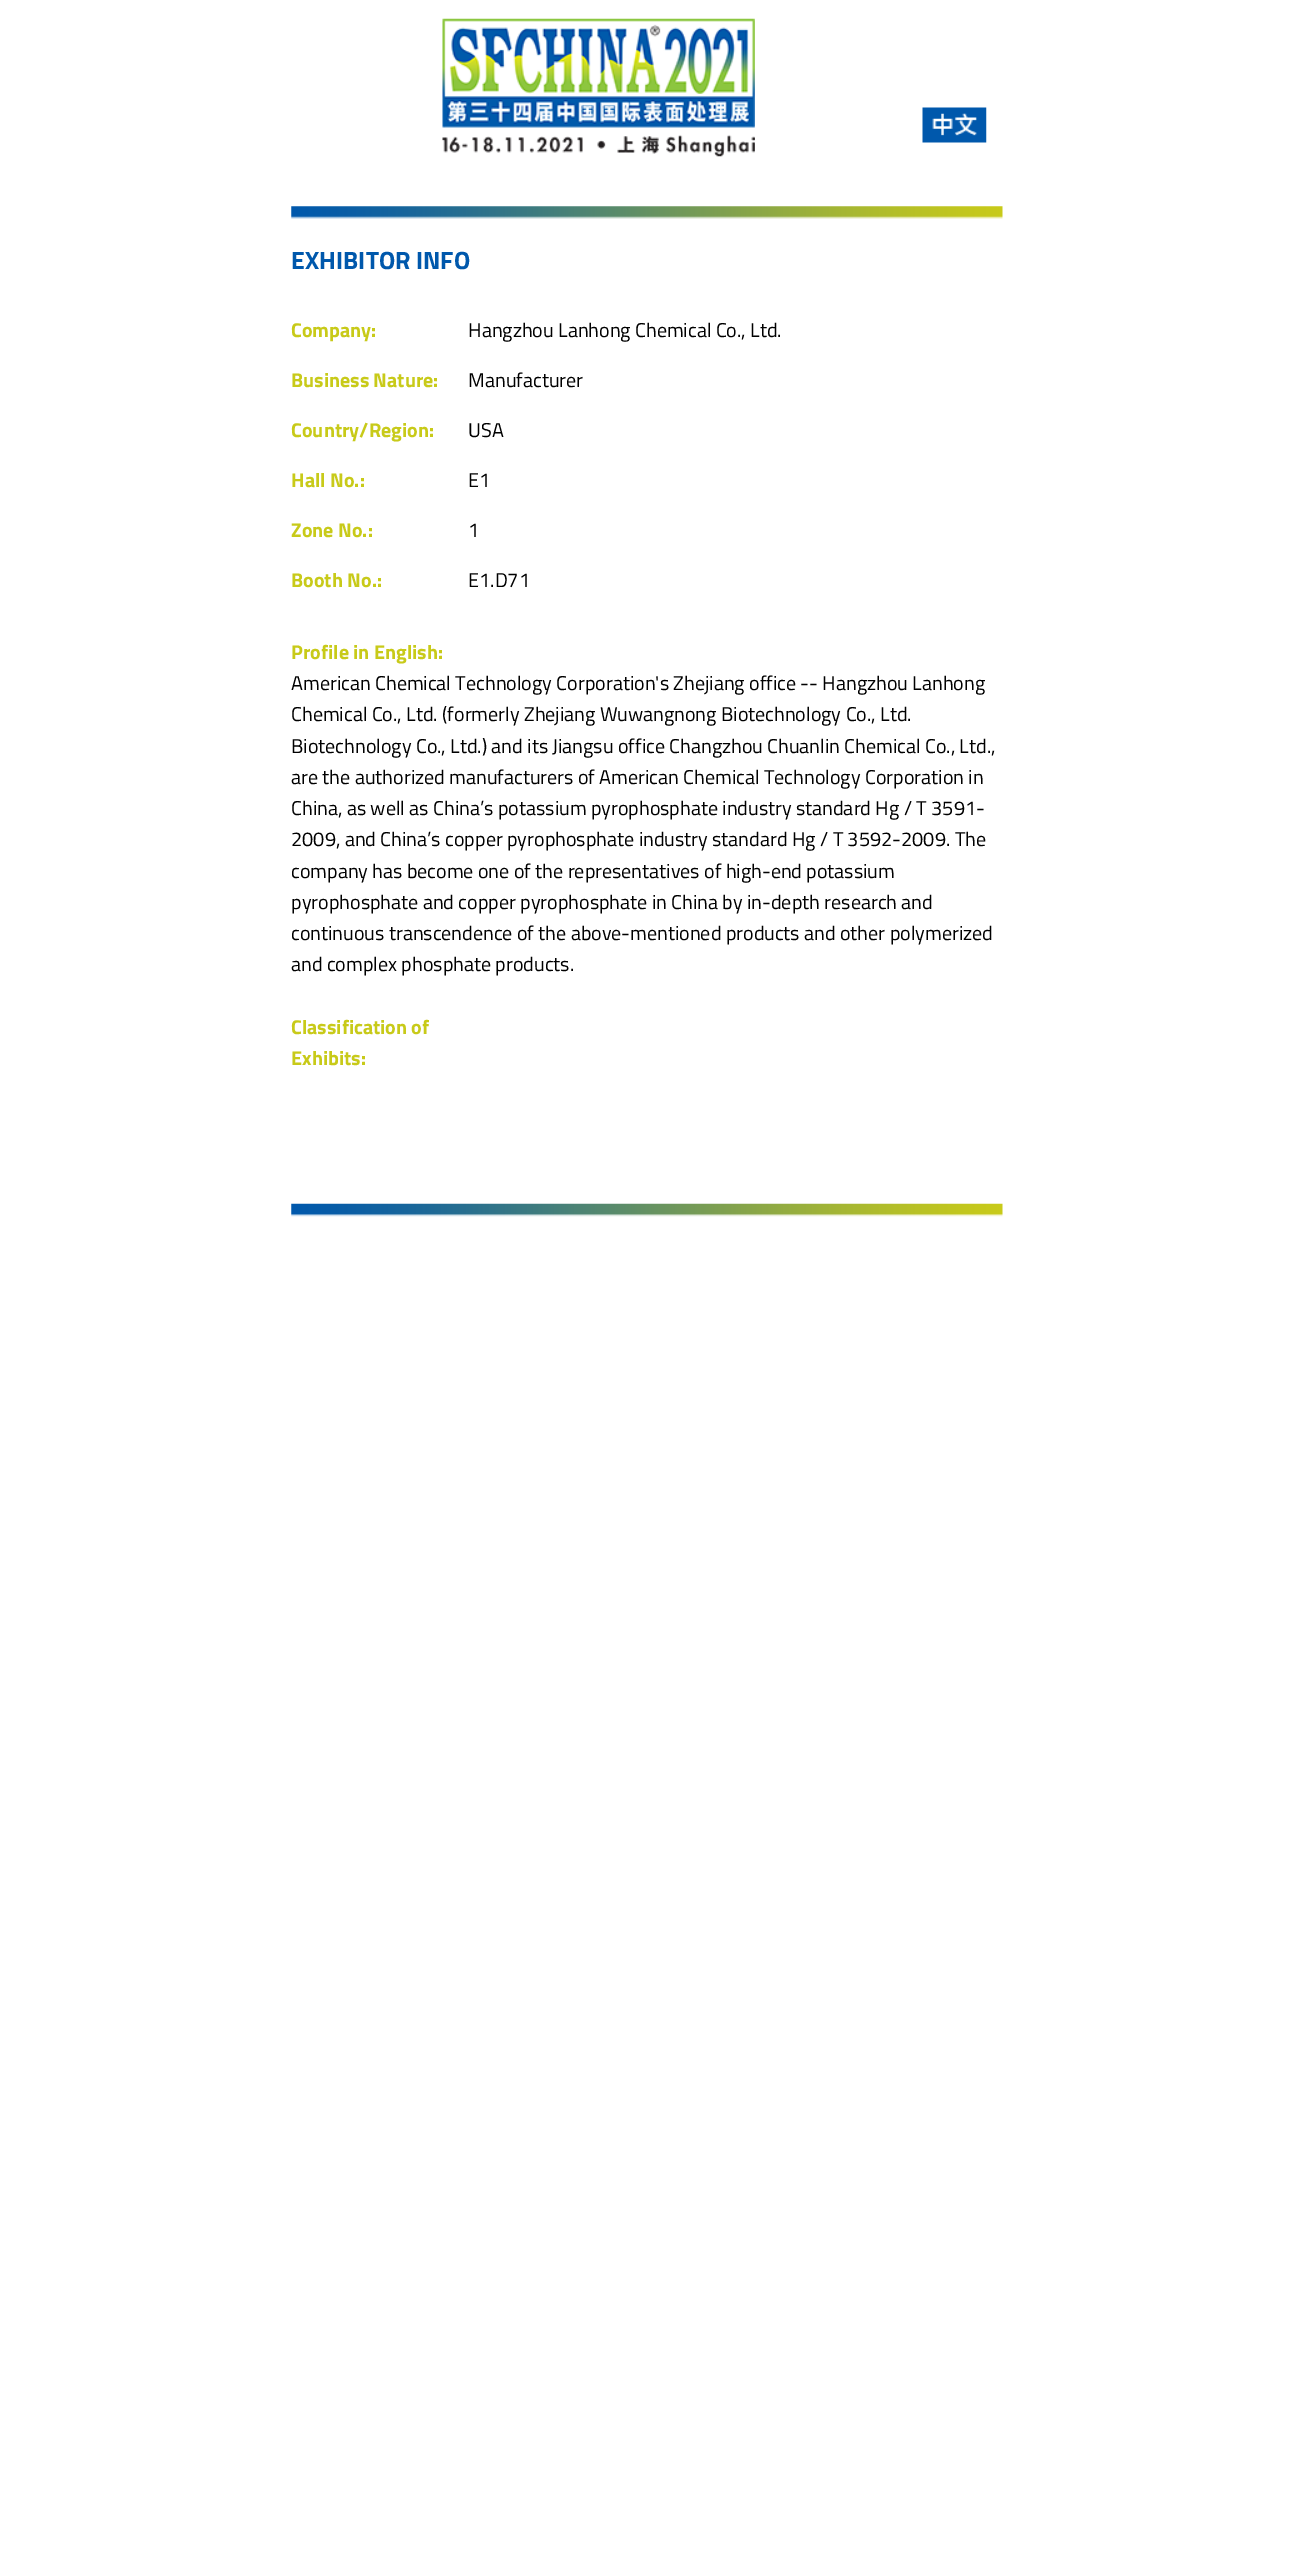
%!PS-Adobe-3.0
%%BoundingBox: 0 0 1293 2566
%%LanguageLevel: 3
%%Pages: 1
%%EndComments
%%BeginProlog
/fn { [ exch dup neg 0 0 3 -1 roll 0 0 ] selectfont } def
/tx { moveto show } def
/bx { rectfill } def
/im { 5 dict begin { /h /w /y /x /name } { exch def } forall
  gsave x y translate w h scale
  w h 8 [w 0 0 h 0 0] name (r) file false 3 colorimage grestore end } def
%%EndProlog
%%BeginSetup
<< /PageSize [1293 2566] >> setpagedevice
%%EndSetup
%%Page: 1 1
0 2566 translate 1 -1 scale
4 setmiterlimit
1 setgray
0 0 1293 2566 bx
(image0.raw) 442 18 313 139 im
(image1.raw) 922 107 65 36 im
(image2.raw) 291 206 712 13 im
/TitilliumWeb-Bold 25 fn
0 0.345 0.675 setrgbcolor
(EXHIBITOR INFO) 291 269 tx
/TitilliumWeb-Bold 20 fn
0.784 0.792 0.098 setrgbcolor
(Company:) 291 337 tx
/TitilliumWeb-Regular 20 fn
0 setgray
(Hangzhou Lanhong Chemical Co., Ltd.) 468 337 tx
/TitilliumWeb-Bold 20 fn
0.784 0.792 0.098 setrgbcolor
(Business Nature:) 291 387 tx
/TitilliumWeb-Regular 20 fn
0 setgray
(Manufacturer) 468 387 tx
/TitilliumWeb-Bold 20 fn
0.784 0.792 0.098 setrgbcolor
(Country/Region:) 291 437 tx
/TitilliumWeb-Regular 20 fn
0 setgray
(USA) 468 437 tx
/TitilliumWeb-Bold 20 fn
0.784 0.792 0.098 setrgbcolor
(Hall No.:) 291 487 tx
/TitilliumWeb-Regular 20 fn
0 setgray
(E1) 468 487 tx
/TitilliumWeb-Bold 20 fn
0.784 0.792 0.098 setrgbcolor
(Zone No.:) 291 537 tx
/TitilliumWeb-Regular 20 fn
0 setgray
(1) 468 537 tx
/TitilliumWeb-Bold 20 fn
0.784 0.792 0.098 setrgbcolor
(Booth No.:) 291 587 tx
/TitilliumWeb-Regular 20 fn
0 setgray
(E1.D71) 468 587 tx
/TitilliumWeb-Bold 20 fn
0.784 0.792 0.098 setrgbcolor
(Profile in English:) 291 659 tx
/TitilliumWeb-Regular 20 fn
0 setgray
(American Chemical Technology Corporation's Zhejiang office -- Hangzhou Lanhong) 291 690 tx
(Chemical Co., Ltd. \(formerly Zhejiang Wuwangnong Biotechnology Co., Ltd.) 291 721 tx
(Biotechnology Co., Ltd.\) and its Jiangsu office Changzhou Chuanlin Chemical Co., Ltd.,) 291 753 tx
(are the authorized manufacturers of American Chemical Technology Corporation in) 291 784 tx
(China, as well as China’s potassium pyrophosphate industry standard Hg / T 3591-) 291 815 tx
(2009, and China’s copper pyrophosphate industry standard Hg / T 3592-2009. The) 291 846 tx
(company has become one of the representatives of high-end potassium) 291 878 tx
(pyrophosphate and copper pyrophosphate in China by in-depth research and) 291 909 tx
(continuous transcendence of the above-mentioned products and other polymerized) 291 940 tx
(and complex phosphate products.) 291 971 tx
/TitilliumWeb-Bold 20 fn
0.784 0.792 0.098 setrgbcolor
(Classification of) 291 1034 tx
(Exhibits:) 291 1065 tx
(image3.raw) 291 1203 712 14 im
showpage
%%EOF
